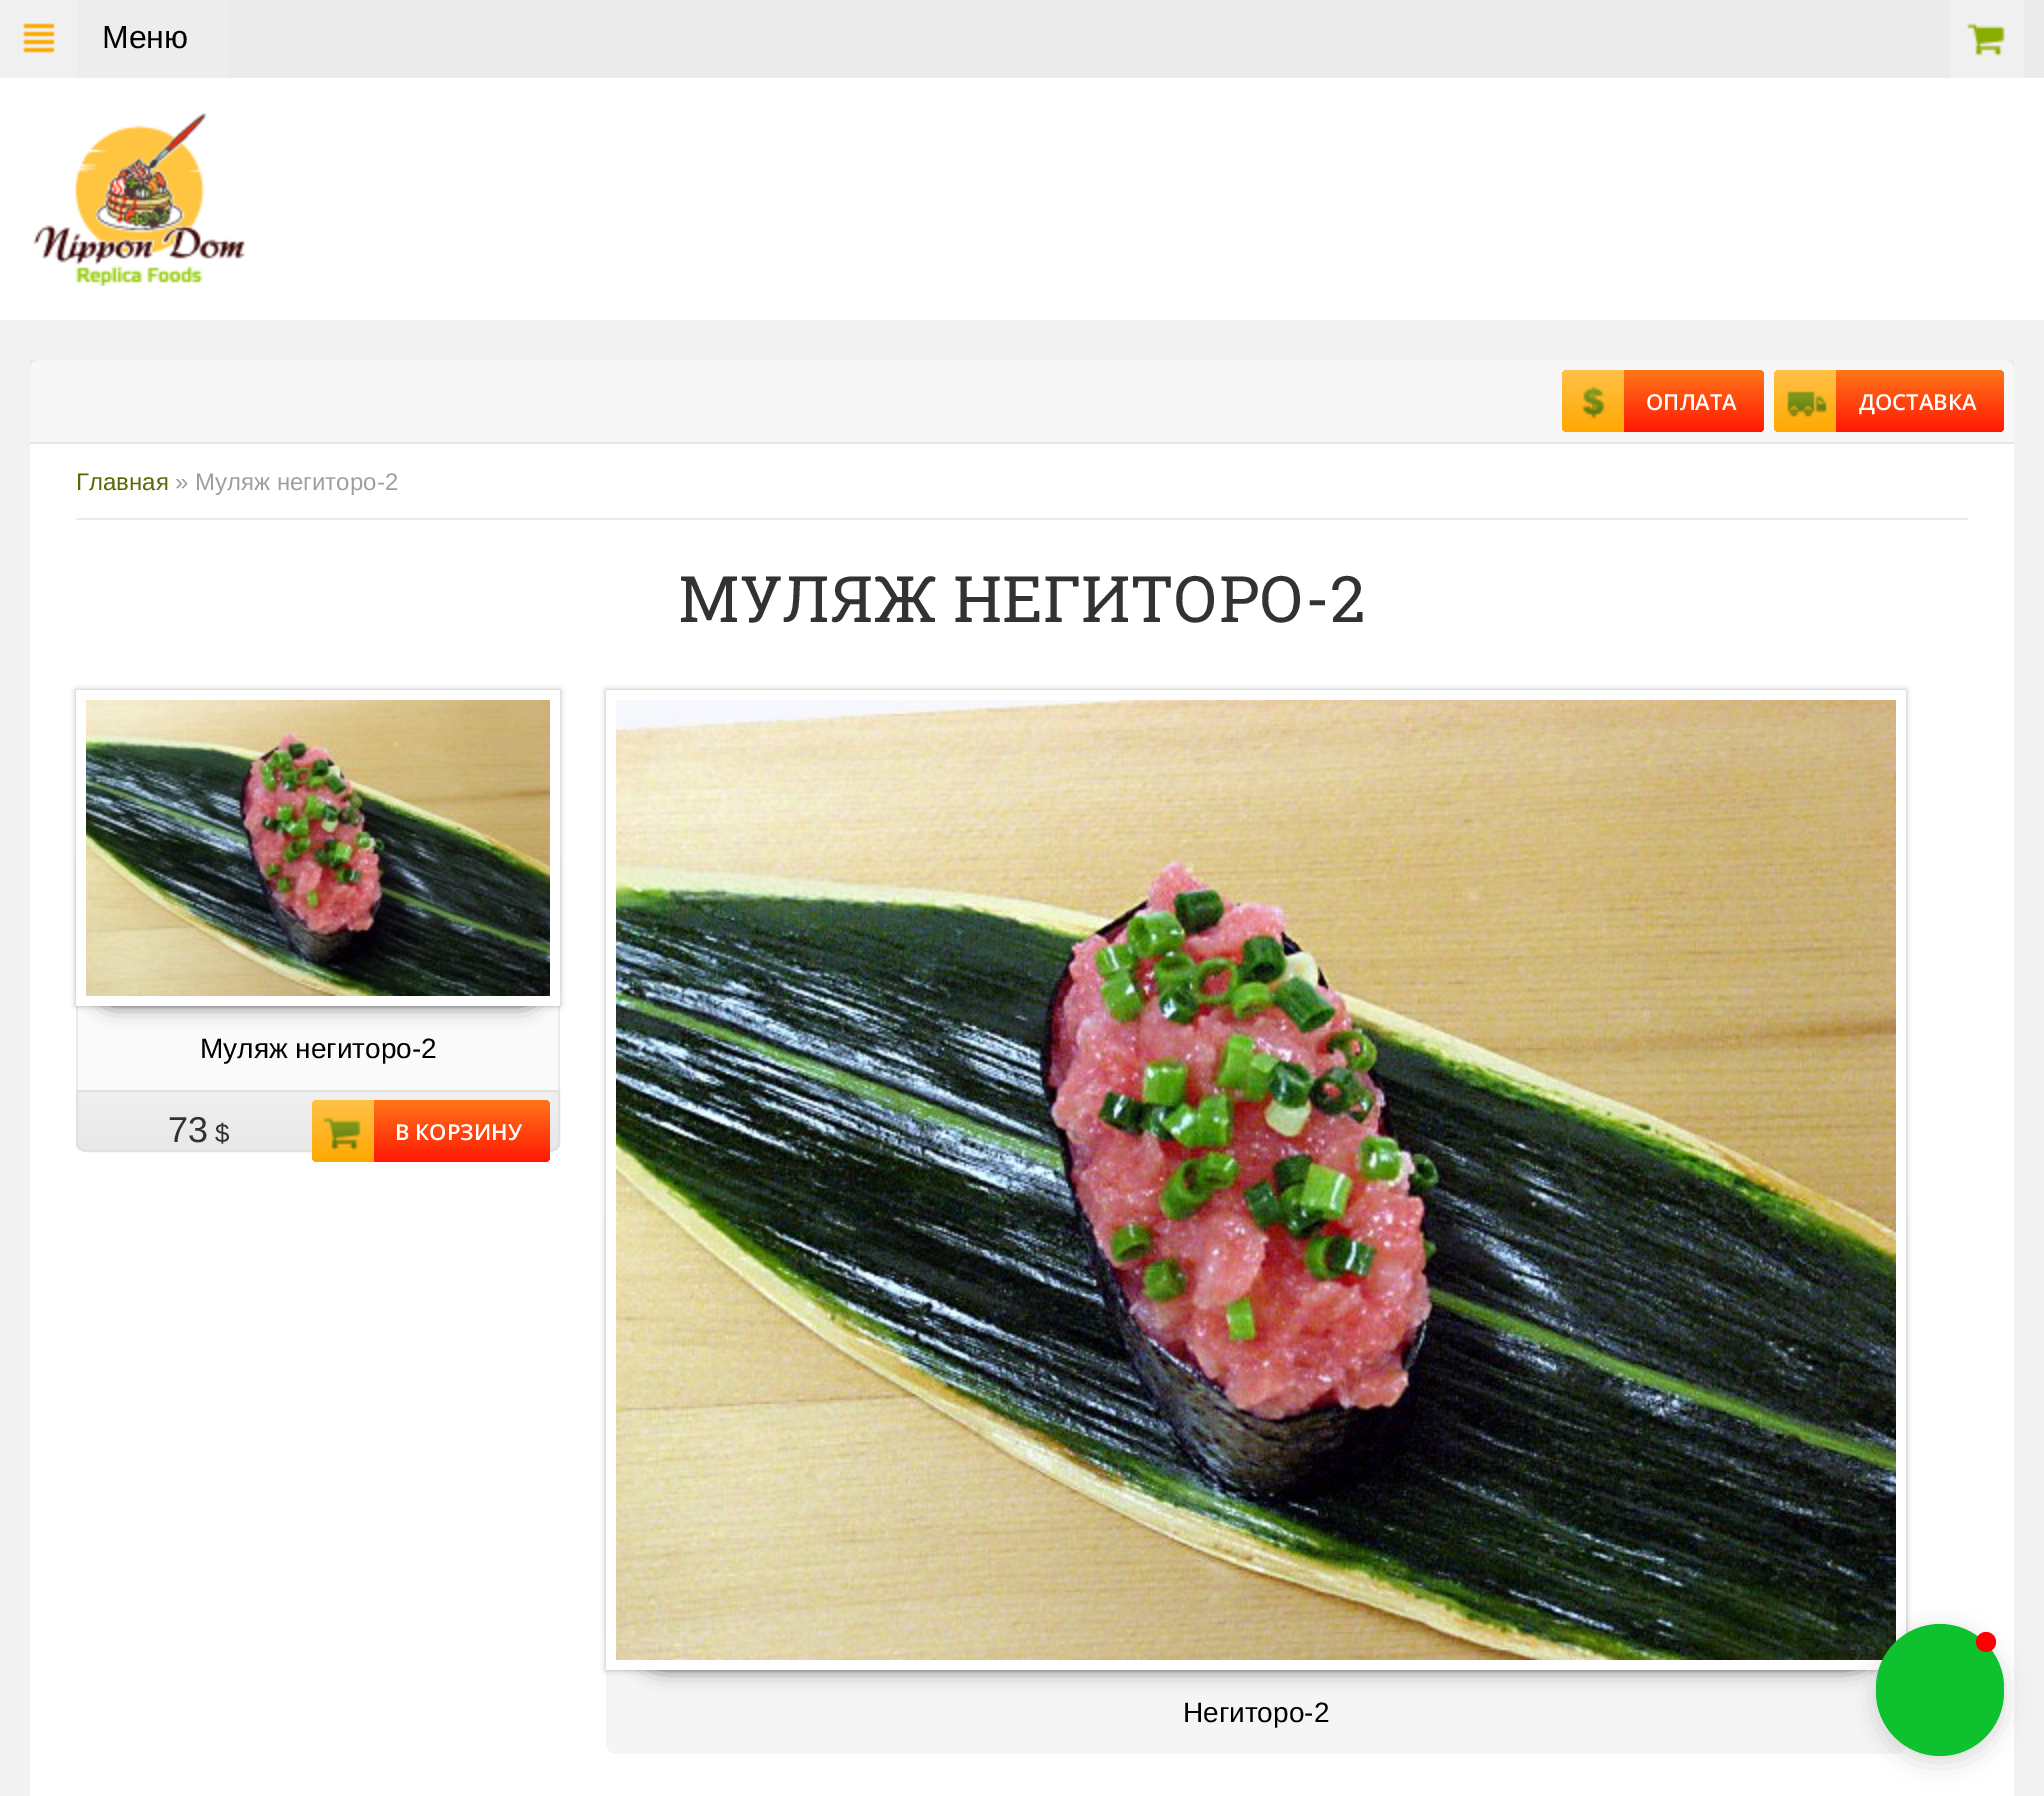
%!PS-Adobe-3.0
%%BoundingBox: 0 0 2044 1796
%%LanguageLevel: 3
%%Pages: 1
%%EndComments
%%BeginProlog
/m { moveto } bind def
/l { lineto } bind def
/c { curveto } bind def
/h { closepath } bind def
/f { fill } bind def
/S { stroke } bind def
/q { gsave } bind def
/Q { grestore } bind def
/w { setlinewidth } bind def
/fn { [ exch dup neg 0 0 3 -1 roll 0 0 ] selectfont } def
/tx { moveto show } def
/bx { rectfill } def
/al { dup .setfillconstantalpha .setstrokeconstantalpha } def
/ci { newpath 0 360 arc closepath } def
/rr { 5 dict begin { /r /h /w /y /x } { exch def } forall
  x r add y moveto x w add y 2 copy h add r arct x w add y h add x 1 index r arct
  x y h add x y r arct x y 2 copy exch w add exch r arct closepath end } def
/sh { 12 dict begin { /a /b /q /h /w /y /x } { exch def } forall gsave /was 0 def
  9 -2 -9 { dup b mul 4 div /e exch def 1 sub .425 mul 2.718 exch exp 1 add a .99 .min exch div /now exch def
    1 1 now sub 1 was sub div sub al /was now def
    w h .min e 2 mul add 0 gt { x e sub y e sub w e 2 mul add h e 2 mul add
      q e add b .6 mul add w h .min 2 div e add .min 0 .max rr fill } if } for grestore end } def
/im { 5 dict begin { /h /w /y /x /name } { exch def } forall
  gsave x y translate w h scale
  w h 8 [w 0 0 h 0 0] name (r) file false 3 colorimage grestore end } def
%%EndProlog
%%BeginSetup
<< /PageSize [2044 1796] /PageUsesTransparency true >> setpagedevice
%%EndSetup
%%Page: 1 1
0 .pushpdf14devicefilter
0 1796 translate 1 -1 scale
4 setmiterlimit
1 setgray
0 0 2044 1796 bx
0.922 setgray
228 0 1816 78 bx
0.929 setgray
78 0 150 78 bx
0.941 setgray
0 0 78 78 bx
(image0.raw) 23 23 32 30 im
/LiberationSans-Regular 32 fn
0 setgray
(Меню) 102 48 tx
0.941 setgray
1950 0 74 78 bx
(image1.raw) 1967 23 38 34 im
(image2.raw) 33 113 212 173 im
0.953 0.949 0.949 setrgbcolor
0 320 2044 1476 bx
1 setgray
30 360 1984 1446 10 rr f
0.03 al
0 setgray
30 360 1984 82 bx
1 al
0.902 setgray
30 442 1984 2 bx
q 1624 370 m 1758 370 l 1761.5 370 1764 372.5 1764 376 c 1764 426 l 1764 429.5 1761.5 432 1758 432 c 1624 432 l h clip newpath
<< /ShadingType 2 /ColorSpace /DeviceRGB /Coords [1694 370 1694 432] /Extend [true true] /Function << /FunctionType 2 /Domain [0 1] /C0 [1 0.463 0.098] /C1 [1 0.094 0.02] /N 1 >> >> shfill Q
q 1568 370 m 1624 370 l 1624 432 l 1568 432 l 1564.5 432 1562 429.5 1562 426 c 1562 376 l 1562 372.5 1564.5 370 1568 370 c h clip newpath
<< /ShadingType 2 /ColorSpace /DeviceRGB /Coords [1593 370 1593 432] /Extend [true true] /Function << /FunctionType 2 /Domain [0 1] /C0 [1 0.757 0.286] /C1 [1 0.659 0] /N 1 >> >> shfill Q
(image3.raw) 1581 385 24 34 im
/OpenSans-SemiBold 22 fn
1 setgray
(ОПЛАТА) 1646 410 tx
q 1836 370 m 1998 370 l 2001.5 370 2004 372.5 2004 376 c 2004 426 l 2004 429.5 2001.5 432 1998 432 c 1836 432 l h clip newpath
<< /ShadingType 2 /ColorSpace /DeviceRGB /Coords [1920 370 1920 432] /Extend [true true] /Function << /FunctionType 2 /Domain [0 1] /C0 [1 0.463 0.098] /C1 [1 0.094 0.02] /N 1 >> >> shfill Q
q 1780 370 m 1836 370 l 1836 432 l 1780 432 l 1776.5 432 1774 429.5 1774 426 c 1774 376 l 1774 372.5 1776.5 370 1780 370 c h clip newpath
<< /ShadingType 2 /ColorSpace /DeviceRGB /Coords [1805 370 1805 432] /Extend [true true] /Function << /FunctionType 2 /Domain [0 1] /C0 [1 0.757 0.286] /C1 [1 0.659 0] /N 1 >> >> shfill Q
(image4.raw) 1787 391 40 26 im
(ДОСТАВКА) 1859 410 tx
0.918 setgray
76 518 1892 2 bx
/LiberationSans-Regular 24 fn
0.333 0.42 0 setrgbcolor
(Главная) 76 490 tx
0.62 setgray
(» Муляж негиторо-2) 175 490 tx
/RobotoSlab-Regular 64 fn
0.196 setgray
(МУЛЯЖ НЕГИТОРО-2) 678 622 tx
0.98 setgray
78 1006 480 84 bx
0.922 setgray
558 1006 2 84 bx
76 1006 2 84 bx
0 setgray
96 848 444 158 18 10 0.5 sh
1 setgray
76 827 484 179 bx
q
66 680 m 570 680 l 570 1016 l 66 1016 l h 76 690 m 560 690 l 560 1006 l 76 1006 l h eoclip newpath
0 setgray
76 690 484 316 0 3 0.3 sh
Q
(image5.raw) 86 700 464 296 im
/LiberationSans-Regular 28 fn
0 setgray
(Муляж негиторо-2) 200 1058 tx
q
76 1090 m 560 1090 l 560 1142 l 560 1147.5 555.5 1152 550 1152 c 86 1152 l 80.5 1152 76 1147.5 76 1142 c h clip newpath
q 76 1092 m 560 1092 l 560 1150 l 76 1150 l h clip newpath
<< /ShadingType 2 /ColorSpace /DeviceRGB /Coords [318 1092 318 1150] /Extend [true true] /Function << /FunctionType 2 /Domain [0 1] /C0 [0.941 0.941 0.941] /C1 [0.91 0.91 0.91] /N 1 >> >> shfill Q
Q
0.882 setgray
2 w
77 1091 m 559 1091 l 559 1142 l 559 1147 555 1151 550 1151 c 86 1151 l 81 1151 77 1147 77 1142 c h S
/LiberationSans-Regular 36 fn
0.196 setgray
(73) 168 1142 tx
/LiberationSans-Regular 26 fn
($) 215 1142 tx
q 374 1100 m 544 1100 l 547.5 1100 550 1102.5 550 1106 c 550 1156 l 550 1159.5 547.5 1162 544 1162 c 374 1162 l h clip newpath
<< /ShadingType 2 /ColorSpace /DeviceRGB /Coords [462 1100 462 1162] /Extend [true true] /Function << /FunctionType 2 /Domain [0 1] /C0 [1 0.463 0.098] /C1 [1 0.094 0.02] /N 1 >> >> shfill Q
q 318 1100 m 374 1100 l 374 1162 l 318 1162 l 314.5 1162 312 1159.5 312 1156 c 312 1106 l 312 1102.5 314.5 1100 318 1100 c h clip newpath
<< /ShadingType 2 /ColorSpace /DeviceRGB /Coords [343 1100 343 1162] /Extend [true true] /Function << /FunctionType 2 /Domain [0 1] /C0 [1 0.757 0.286] /C1 [1 0.659 0] /N 1 >> >> shfill Q
(image6.raw) 323 1117 38 34 im
/OpenSans-SemiBold 22 fn
1 setgray
(В КОРЗИНУ) 395 1140 tx
0.961 setgray
606 1670 m 1906 1670 l 1906 1744 l 1906 1749.5 1901.5 1754 1896 1754 c 616 1754 l 610.5 1754 606 1749.5 606 1744 c h f
0 setgray
626 1180 1260 490 40 10 0.5 sh
1 setgray
606 1159 1300 511 bx
q
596 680 m 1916 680 l 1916 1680 l 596 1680 l h 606 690 m 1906 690 l 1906 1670 l 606 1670 l h eoclip newpath
0 setgray
606 690 1300 980 0 3 0.3 sh
Q
(image7.raw) 616 700 1280 960 im
/LiberationSans-Regular 28 fn
0 setgray
(Негиторо-2) 1183 1722 tx
1876 1630 128 132 64 12 0.15 sh
0.055 0.757 0.184 setrgbcolor
1876 1624 128 132 64 rr f
1 0 0 setrgbcolor
1986 1642 10 ci f
.poppdf14devicefilter showpage
%%EOF
